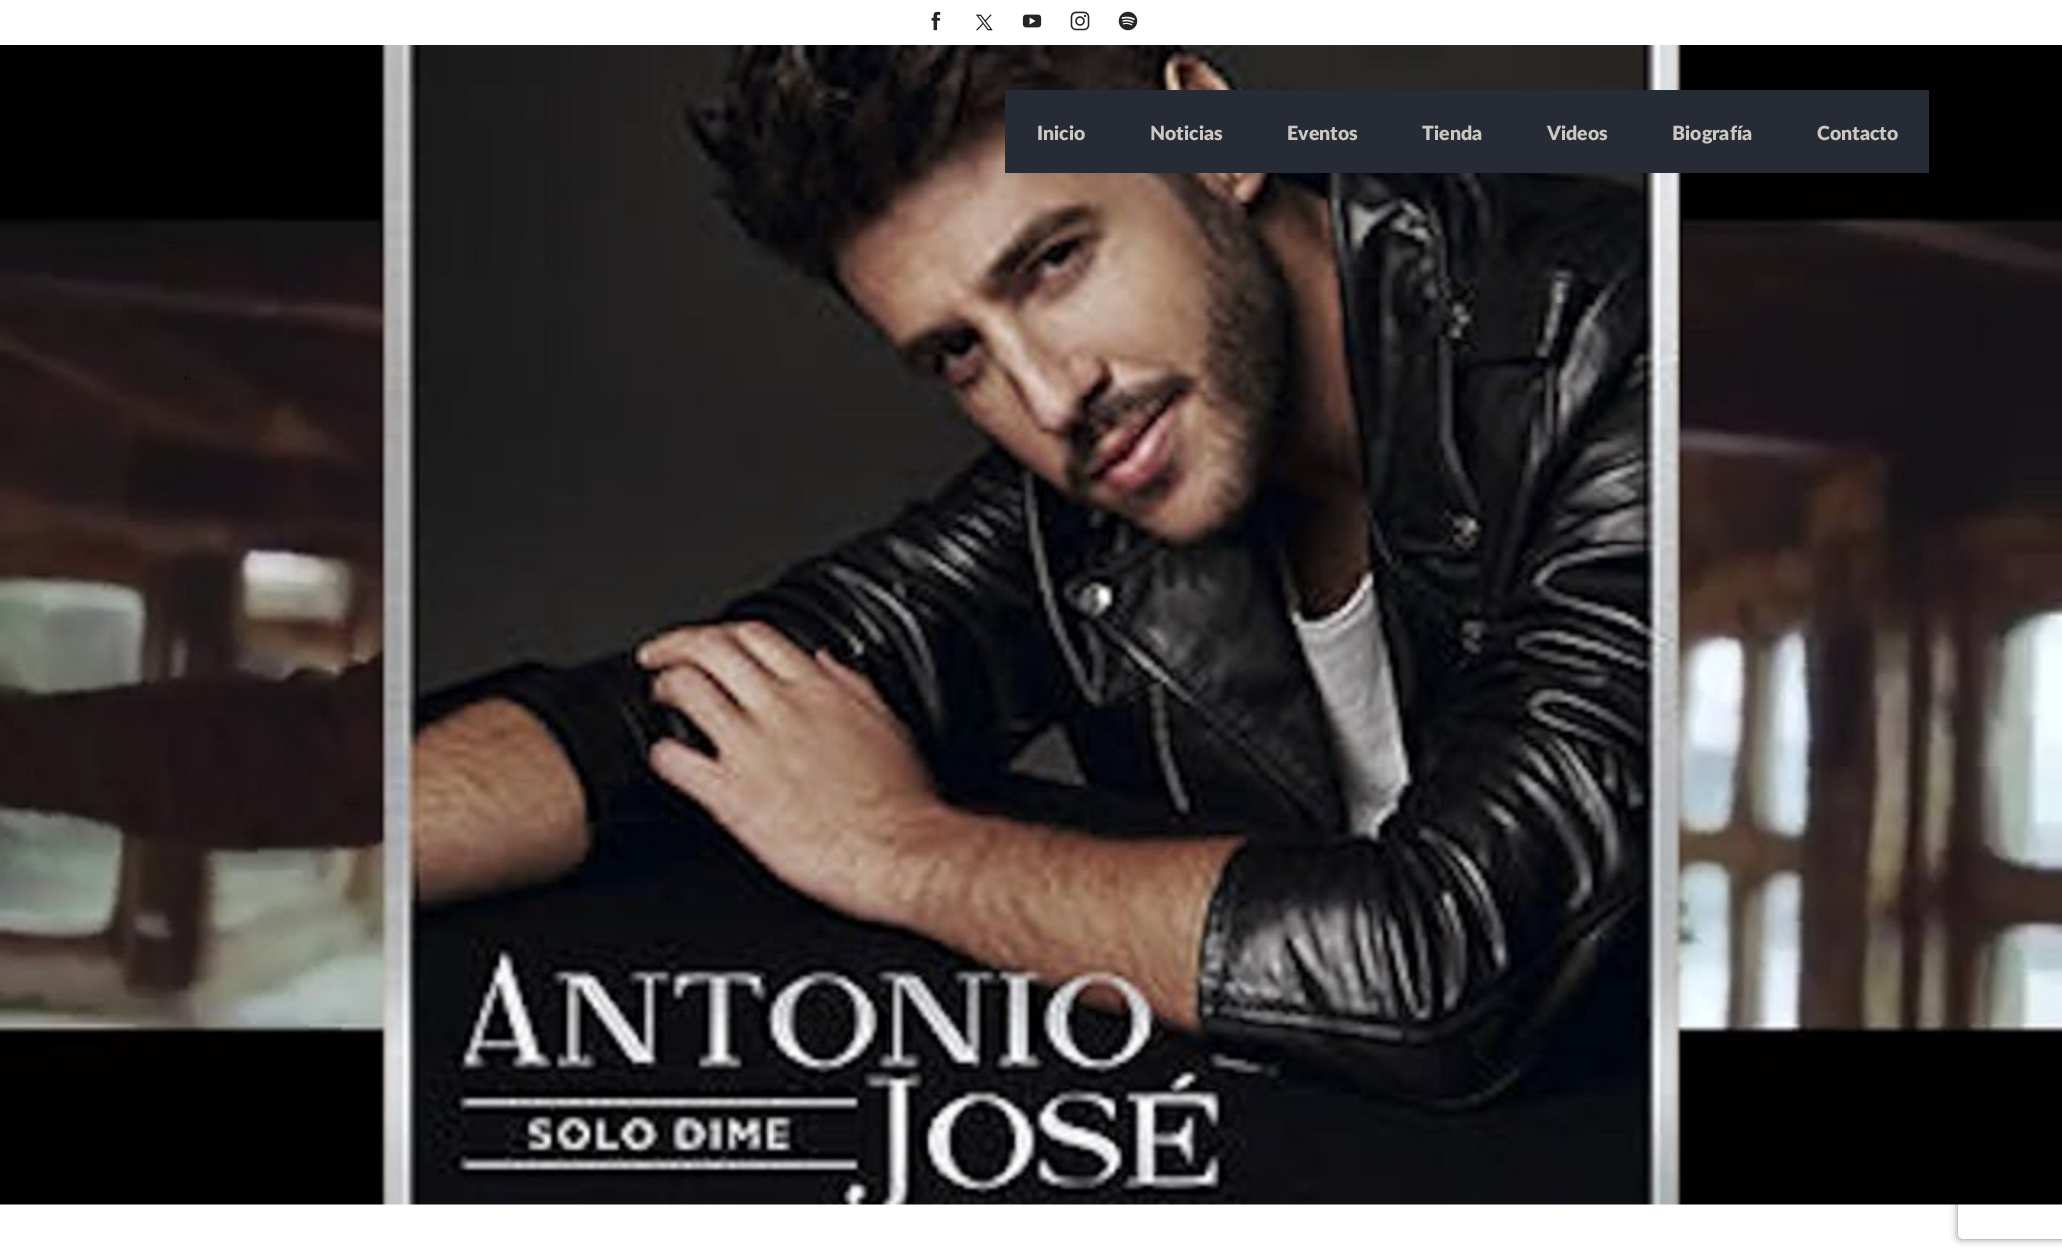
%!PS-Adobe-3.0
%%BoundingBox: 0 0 2062 1259
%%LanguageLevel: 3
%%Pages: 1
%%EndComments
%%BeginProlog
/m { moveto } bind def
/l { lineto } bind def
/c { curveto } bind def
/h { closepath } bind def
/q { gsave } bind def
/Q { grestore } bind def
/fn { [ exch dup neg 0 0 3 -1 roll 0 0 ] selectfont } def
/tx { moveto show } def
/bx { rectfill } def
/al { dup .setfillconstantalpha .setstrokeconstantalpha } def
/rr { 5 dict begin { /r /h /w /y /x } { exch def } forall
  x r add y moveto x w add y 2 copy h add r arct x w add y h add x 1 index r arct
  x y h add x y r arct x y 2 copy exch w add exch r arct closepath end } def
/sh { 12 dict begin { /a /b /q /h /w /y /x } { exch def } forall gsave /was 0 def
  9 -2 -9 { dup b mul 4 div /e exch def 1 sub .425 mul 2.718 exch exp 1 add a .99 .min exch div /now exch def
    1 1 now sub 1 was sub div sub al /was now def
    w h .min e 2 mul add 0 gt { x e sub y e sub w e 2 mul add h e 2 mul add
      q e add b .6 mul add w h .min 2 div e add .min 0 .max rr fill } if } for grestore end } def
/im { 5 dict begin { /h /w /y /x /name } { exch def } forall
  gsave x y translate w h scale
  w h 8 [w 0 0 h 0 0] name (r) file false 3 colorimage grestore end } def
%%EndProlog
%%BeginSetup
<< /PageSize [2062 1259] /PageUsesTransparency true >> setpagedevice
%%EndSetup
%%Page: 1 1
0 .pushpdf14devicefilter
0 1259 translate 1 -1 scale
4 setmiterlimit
1 setgray
0 0 2062 1259 bx
(image0.raw) 931 11 10 20 im
(image1.raw) 976 14 17 17 im
(image2.raw) 1022 14 20 14 im
(image3.raw) 1070 11 20 20 im
(image4.raw) 1118 11 20 20 im
q
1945 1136 m 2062 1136 l 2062 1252 l 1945 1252 l h 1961 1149 m 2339 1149 l 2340.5 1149 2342 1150.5 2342 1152 c 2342 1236 l 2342 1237.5 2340.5 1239 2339 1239 c 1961 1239 l 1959.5 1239 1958 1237.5 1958 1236 c 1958 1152 l 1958 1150.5 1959.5 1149 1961 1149 c h eoclip newpath
0.502 setgray
1958 1149 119 90 3 4 1 sh
Q
(image5.raw) 0 45 2062 1160 im
0.149 0.169 0.208 setrgbcolor
1005 90 924 83 bx
/Lato-Black 19.5 fn
0.8 0.784 0.757 setrgbcolor
(Inicio) 1037 140 tx
(Noticias) 1150 140 tx
(Eventos) 1287 140 tx
(Tienda) 1422 140 tx
(Videos) 1547 140 tx
(Biografía) 1672 140 tx
(Contacto) 1817 140 tx
.poppdf14devicefilter showpage
%%EOF
